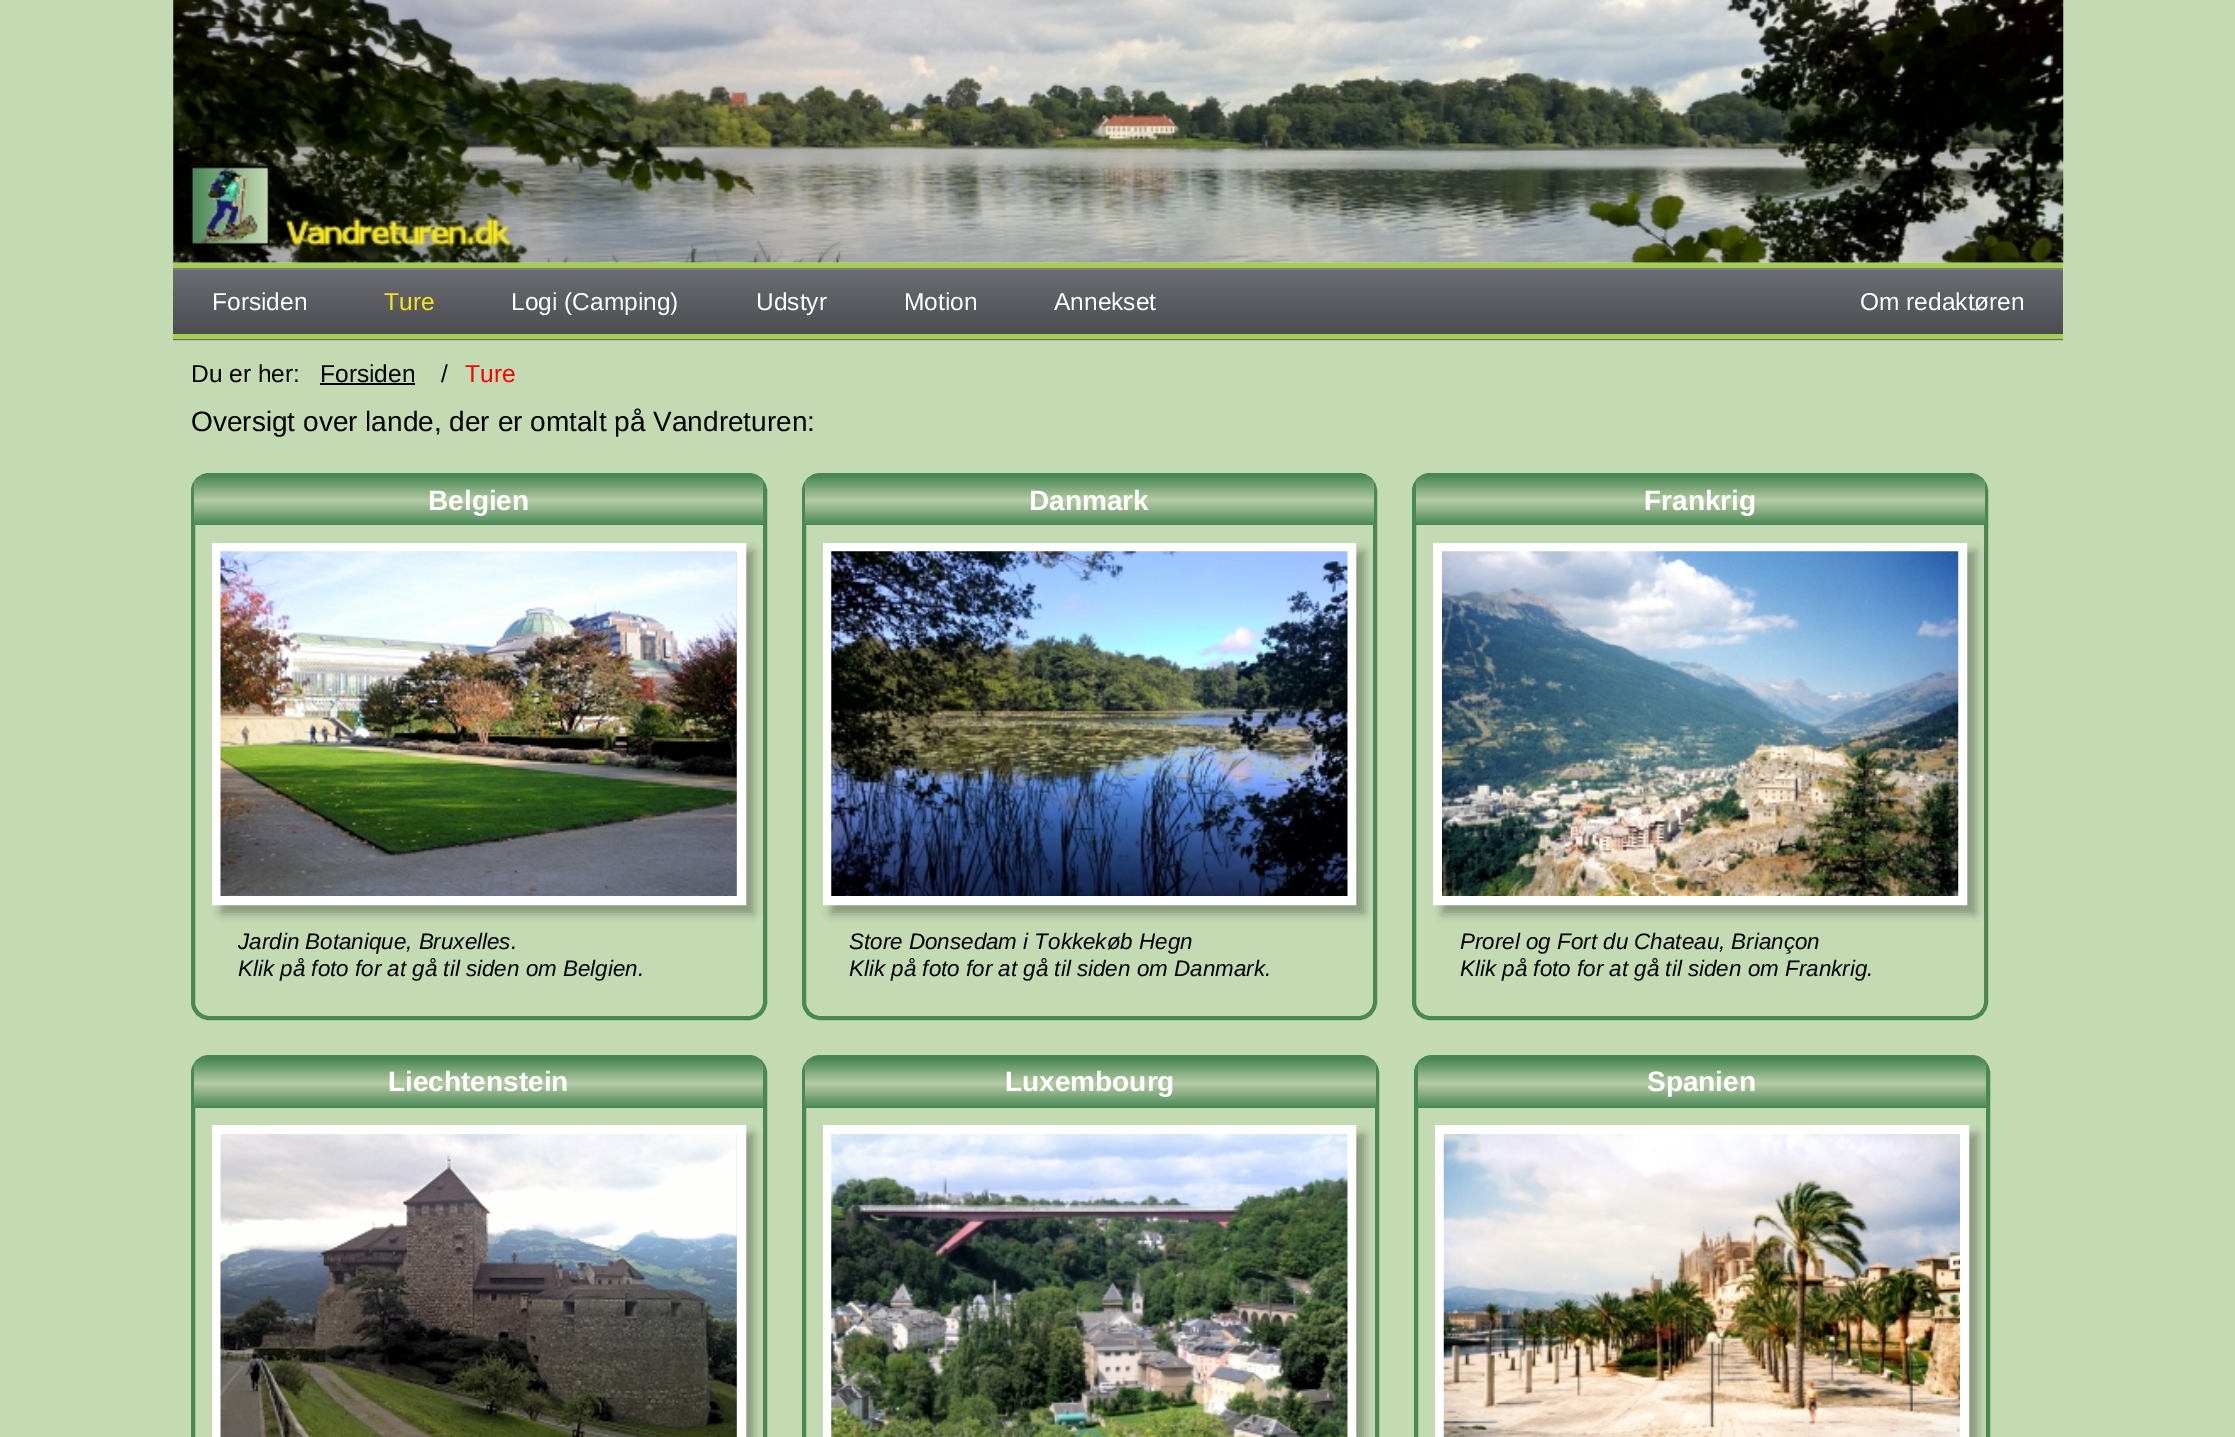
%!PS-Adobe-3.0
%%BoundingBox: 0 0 2235 1437
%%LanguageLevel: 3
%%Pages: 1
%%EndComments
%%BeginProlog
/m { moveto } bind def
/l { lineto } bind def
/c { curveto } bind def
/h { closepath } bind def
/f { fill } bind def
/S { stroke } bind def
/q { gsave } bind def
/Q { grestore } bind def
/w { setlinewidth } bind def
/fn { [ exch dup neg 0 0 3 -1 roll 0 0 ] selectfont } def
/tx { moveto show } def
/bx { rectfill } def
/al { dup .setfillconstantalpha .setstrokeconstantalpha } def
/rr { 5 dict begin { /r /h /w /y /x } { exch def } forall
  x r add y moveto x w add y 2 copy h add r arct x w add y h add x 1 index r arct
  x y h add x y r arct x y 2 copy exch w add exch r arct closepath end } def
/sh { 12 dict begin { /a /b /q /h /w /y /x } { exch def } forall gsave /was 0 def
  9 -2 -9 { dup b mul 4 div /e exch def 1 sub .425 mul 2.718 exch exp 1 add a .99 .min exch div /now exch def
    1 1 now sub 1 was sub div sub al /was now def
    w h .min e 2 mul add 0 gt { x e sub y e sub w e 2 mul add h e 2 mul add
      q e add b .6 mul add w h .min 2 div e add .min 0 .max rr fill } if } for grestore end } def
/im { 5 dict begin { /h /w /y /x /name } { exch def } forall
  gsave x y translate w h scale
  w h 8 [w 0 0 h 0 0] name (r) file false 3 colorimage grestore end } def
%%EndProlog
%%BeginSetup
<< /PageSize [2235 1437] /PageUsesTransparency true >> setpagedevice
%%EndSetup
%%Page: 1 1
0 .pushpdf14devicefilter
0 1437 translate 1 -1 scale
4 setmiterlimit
0.769 0.855 0.698 setrgbcolor
0 0 2235 1437 bx
(image0.raw) 173 0 1891 263 im
0.69 0.769 0.627 setrgbcolor
173 264 m 173 341 l 2063 341 l 2063 340 l 173 340 l h f
q 173 270 m 2063 270 l 2063 334 l 173 334 l h clip newpath
<< /ShadingType 2 /ColorSpace /DeviceRGB /Coords [1118 268 1118 334] /Extend [true true] /Function << /FunctionType 2 /Domain [0 1] /C0 [0.424 0.431 0.455] /C1 [0.294 0.302 0.318] /N 1 >> >> shfill Q
q 173 339 m 2063 339 l 2063 340 l 173 340 l h clip newpath
<< /ShadingType 2 /ColorSpace /DeviceRGB /Coords [1118 334 1118 401] /Extend [true true] /Function << /FunctionType 2 /Domain [0 1] /C0 [0.424 0.431 0.455] /C1 [0.294 0.302 0.318] /N 1 >> >> shfill Q
0.478 0.486 0.506 setrgbcolor
173 268 1890 2 bx
0.647 0.804 0.306 setrgbcolor
173 263 1890 5 bx
173 334 1890 5 bx
/LiberationSans-Regular 24.5 fn
1 setgray
(Forsiden) 212 310 tx
0.961 0.902 0.098 setrgbcolor
(Ture) 384 310 tx
1 setgray
(Logi \(Camping\)) 511 310 tx
(Udstyr) 756 310 tx
(Motion) 904 310 tx
(Annekset) 1054 310 tx
(Om redaktøren) 1860 310 tx
0 setgray
(Du er her:) 191 382 tx
(Forsiden) 320 382 tx
320 383 95 2 bx
(/) 441 382 tx
1 0 0 setrgbcolor
(Ture) 465 382 tx
/LiberationSans-Regular 28 fn
0 setgray
(Oversigt over lande, der er omtalt på Vandreturen:) 191 431 tx
0.286 0.533 0.333 setrgbcolor
4 w
193 475 572 543 16 rr S
q 203 476 m 754 476 l 759 476 763 480 763 485 c 763 525 l 194 525 l 194 485 l 194 480 198 476 203 476 c h clip newpath
<< /ShadingType 2 /ColorSpace /DeviceRGB /Coords [479 476 479 525] /Extend [true true] /Function << /FunctionType 3 /Domain [0 1] /Functions [<< /FunctionType 2 /Domain [0 1] /C0 [0.286 0.533 0.333] /C1 [0.714 0.796 0.647] /N 1 >> << /FunctionType 2 /Domain [0 1] /C0 [0.714 0.796 0.647] /C1 [0.286 0.533 0.333] /N 1 >>] /Bounds [0.5] /Encode [0 1 0 1] >> >> shfill Q
/LiberationSans-Bold 28 fn
1 setgray
(Belgien) 428 510 tx
0 setgray
221 551 533 363 0 4.5 0.3 sh
1 setgray
9 w
216.5 547.5 525 353 rectstroke
(image1.raw) 220 551 517 345 im
/LiberationSans-Italic 22.4 fn
0 setgray
(Jardin Botanique, Bruxelles.) 238 949 tx
(Klik på foto for at gå til siden om Belgien.) 238 976 tx
0.286 0.533 0.333 setrgbcolor
4 w
804 475 571 543 16 rr S
q 814 476 m 1365 476 l 1370 476 1374 480 1374 485 c 1374 525 l 805 525 l 805 485 l 805 480 809 476 814 476 c h clip newpath
<< /ShadingType 2 /ColorSpace /DeviceRGB /Coords [1089 476 1089 525] /Extend [true true] /Function << /FunctionType 3 /Domain [0 1] /Functions [<< /FunctionType 2 /Domain [0 1] /C0 [0.286 0.533 0.333] /C1 [0.714 0.796 0.647] /N 1 >> << /FunctionType 2 /Domain [0 1] /C0 [0.714 0.796 0.647] /C1 [0.286 0.533 0.333] /N 1 >>] /Bounds [0.5] /Encode [0 1 0 1] >> >> shfill Q
/LiberationSans-Bold 28 fn
1 setgray
(Danmark) 1029 510 tx
0 setgray
831 551 534 363 0 4.5 0.3 sh
1 setgray
9 w
827.5 547.5 524 353 rectstroke
(image2.raw) 831 551 517 345 im
/LiberationSans-Italic 22.4 fn
0 setgray
(Store Donsedam i Tokkekøb Hegn) 849 949 tx
(Klik på foto for at gå til siden om Danmark.) 849 976 tx
0.286 0.533 0.333 setrgbcolor
4 w
1414 475 572 543 16 rr S
q 1425 476 m 1976 476 l 1981 476 1985 480 1985 485 c 1985 525 l 1416 525 l 1416 485 l 1416 480 1420 476 1425 476 c h clip newpath
<< /ShadingType 2 /ColorSpace /DeviceRGB /Coords [1700 476 1700 525] /Extend [true true] /Function << /FunctionType 3 /Domain [0 1] /Functions [<< /FunctionType 2 /Domain [0 1] /C0 [0.286 0.533 0.333] /C1 [0.714 0.796 0.647] /N 1 >> << /FunctionType 2 /Domain [0 1] /C0 [0.714 0.796 0.647] /C1 [0.286 0.533 0.333] /N 1 >>] /Bounds [0.5] /Encode [0 1 0 1] >> >> shfill Q
/LiberationSans-Bold 28 fn
1 setgray
(Frankrig) 1644 510 tx
0 setgray
1442 551 534 363 0 4.5 0.3 sh
1 setgray
9 w
1437.5 547.5 525 353 rectstroke
(image3.raw) 1442 551 517 345 im
/LiberationSans-Italic 22.4 fn
0 setgray
(Prorel og Fort du Chateau, Briançon) 1460 949 tx
(Klik på foto for at gå til siden om Frankrig.) 1460 976 tx
0.286 0.533 0.333 setrgbcolor
4 w
193 1057 572 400 16 rr S
q 203 1059 m 754 1059 l 759 1059 763 1063 763 1068 c 763 1108 l 194 1108 l 194 1068 l 194 1063 198 1059 203 1059 c h clip newpath
<< /ShadingType 2 /ColorSpace /DeviceRGB /Coords [479 1059 479 1108] /Extend [true true] /Function << /FunctionType 3 /Domain [0 1] /Functions [<< /FunctionType 2 /Domain [0 1] /C0 [0.286 0.533 0.333] /C1 [0.714 0.796 0.647] /N 1 >> << /FunctionType 2 /Domain [0 1] /C0 [0.714 0.796 0.647] /C1 [0.286 0.533 0.333] /N 1 >>] /Bounds [0.5] /Encode [0 1 0 1] >> >> shfill Q
/LiberationSans-Bold 28 fn
1 setgray
(Liechtenstein) 388 1091 tx
0 setgray
221 1134 533 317 0 4.5 0.3 sh
1 setgray
9 w
216.5 1129.5 525 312 rectstroke
(image4.raw) 220 1134 517 303 im
0.286 0.533 0.333 setrgbcolor
4 w
804 1057 573 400 16 rr S
q 814 1059 m 1367 1059 l 1372 1059 1376 1063 1376 1068 c 1376 1108 l 805 1108 l 805 1068 l 805 1063 809 1059 814 1059 c h clip newpath
<< /ShadingType 2 /ColorSpace /DeviceRGB /Coords [1090 1059 1090 1108] /Extend [true true] /Function << /FunctionType 3 /Domain [0 1] /Functions [<< /FunctionType 2 /Domain [0 1] /C0 [0.286 0.533 0.333] /C1 [0.714 0.796 0.647] /N 1 >> << /FunctionType 2 /Domain [0 1] /C0 [0.714 0.796 0.647] /C1 [0.286 0.533 0.333] /N 1 >>] /Bounds [0.5] /Encode [0 1 0 1] >> >> shfill Q
1 setgray
(Luxembourg) 1005 1091 tx
0 setgray
831 1134 534 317 0 4.5 0.3 sh
1 setgray
9 w
827.5 1129.5 524 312 rectstroke
(image5.raw) 831 1134 517 303 im
0.286 0.533 0.333 setrgbcolor
4 w
1416 1057 572 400 16 rr S
q 1427 1059 m 1977 1059 l 1982 1059 1986 1063 1986 1068 c 1986 1108 l 1418 1108 l 1418 1068 l 1418 1063 1422 1059 1427 1059 c h clip newpath
<< /ShadingType 2 /ColorSpace /DeviceRGB /Coords [1702 1059 1702 1108] /Extend [true true] /Function << /FunctionType 3 /Domain [0 1] /Functions [<< /FunctionType 2 /Domain [0 1] /C0 [0.286 0.533 0.333] /C1 [0.714 0.796 0.647] /N 1 >> << /FunctionType 2 /Domain [0 1] /C0 [0.714 0.796 0.647] /C1 [0.286 0.533 0.333] /N 1 >>] /Bounds [0.5] /Encode [0 1 0 1] >> >> shfill Q
1 setgray
(Spanien) 1647 1091 tx
0 setgray
1444 1134 534 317 0 4.5 0.3 sh
1 setgray
9 w
1439.5 1129.5 525 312 rectstroke
(image6.raw) 1443 1134 517 303 im
.poppdf14devicefilter showpage
%%EOF
